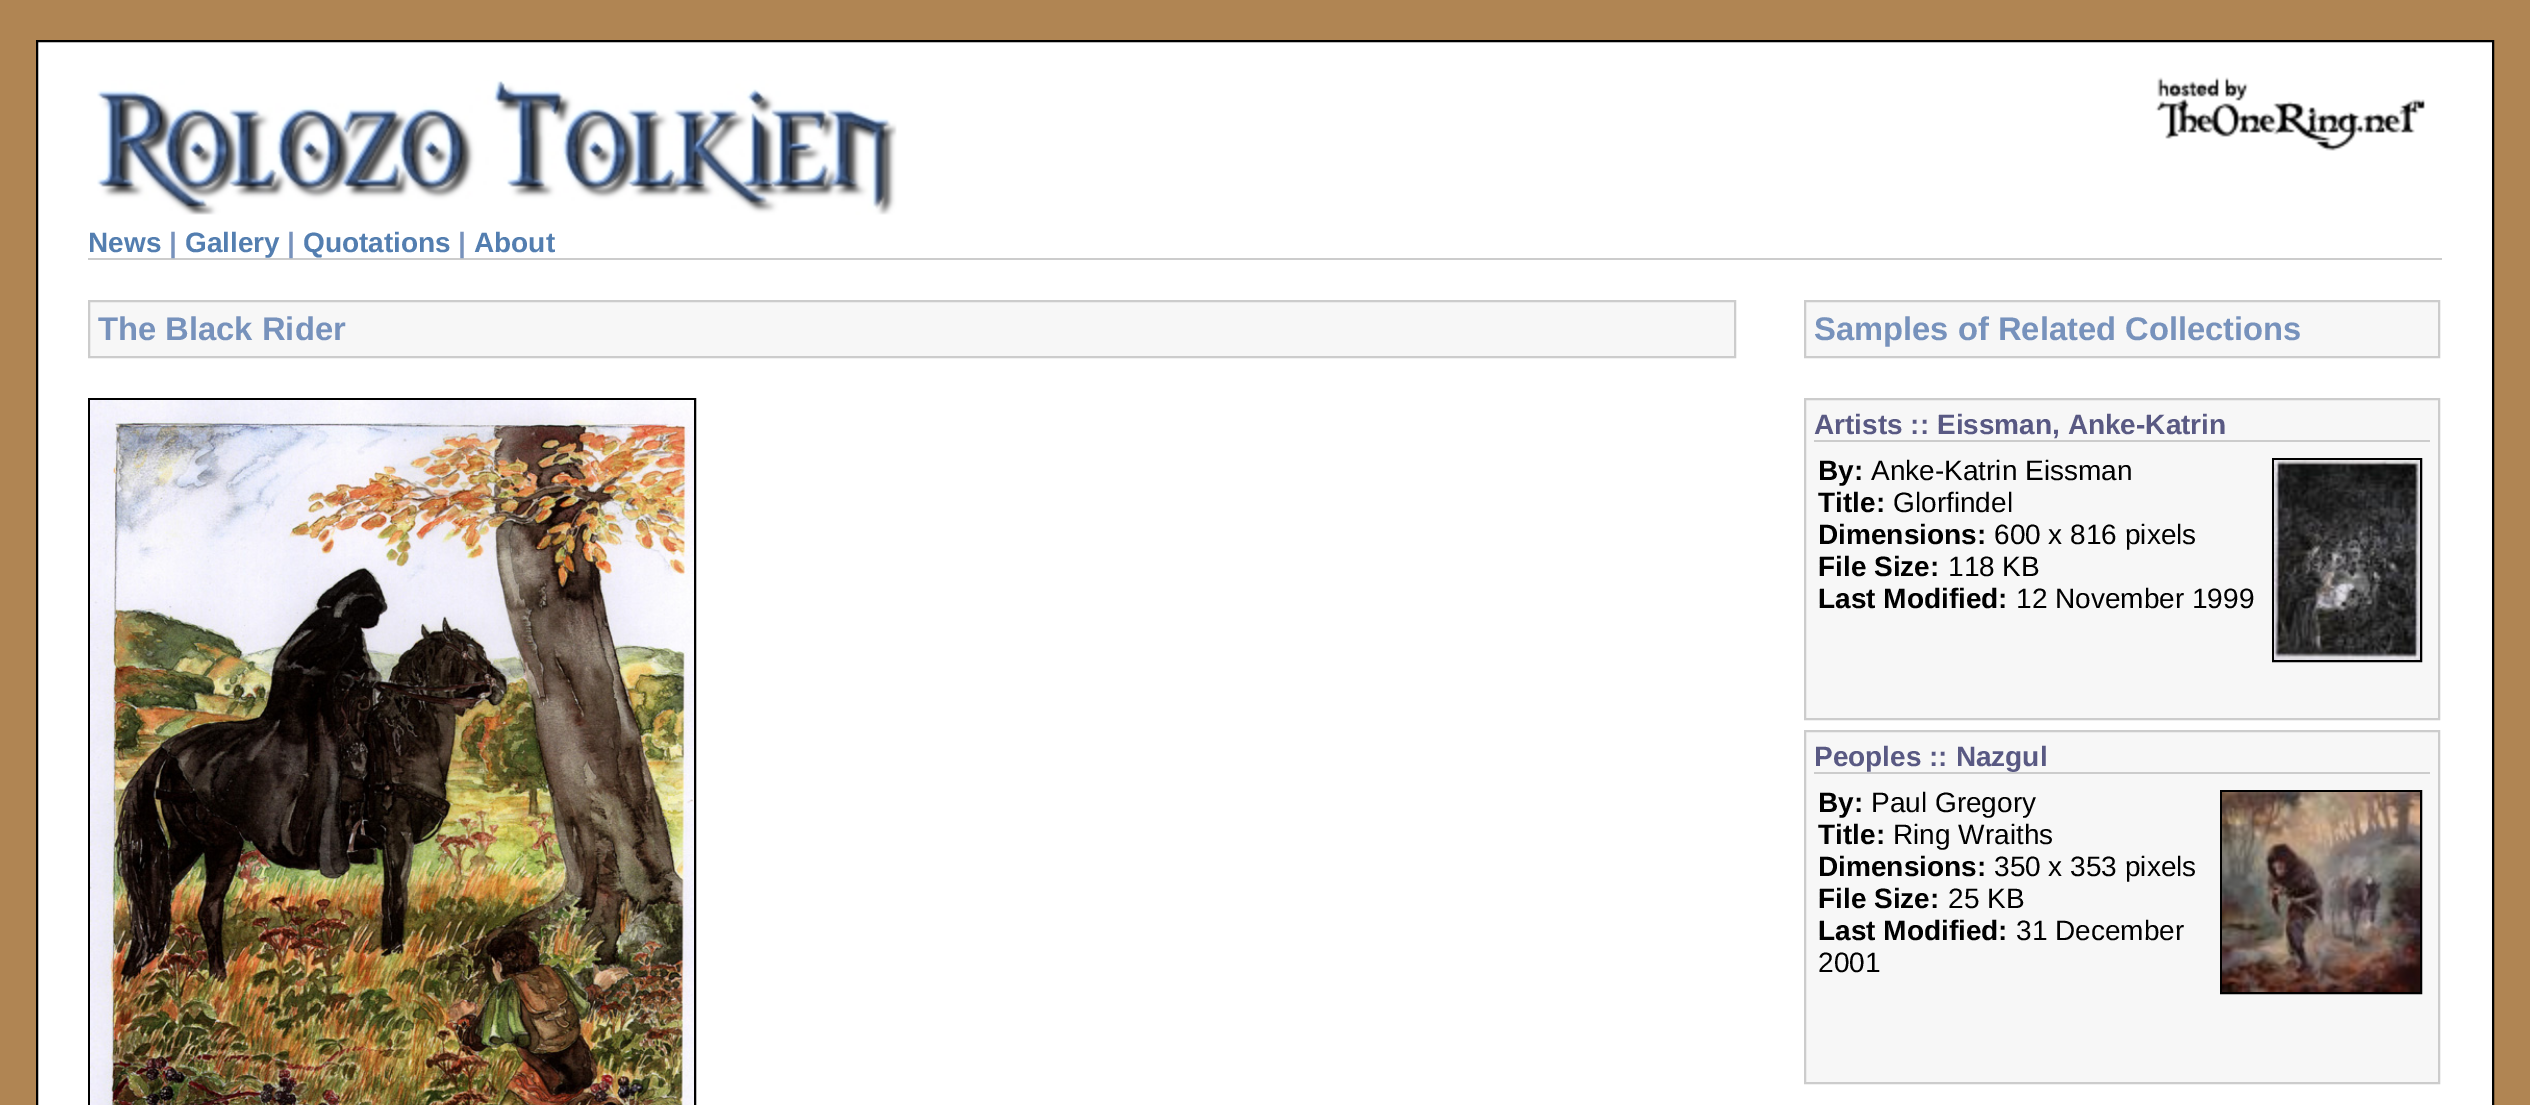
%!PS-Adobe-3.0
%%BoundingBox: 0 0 2530 1105
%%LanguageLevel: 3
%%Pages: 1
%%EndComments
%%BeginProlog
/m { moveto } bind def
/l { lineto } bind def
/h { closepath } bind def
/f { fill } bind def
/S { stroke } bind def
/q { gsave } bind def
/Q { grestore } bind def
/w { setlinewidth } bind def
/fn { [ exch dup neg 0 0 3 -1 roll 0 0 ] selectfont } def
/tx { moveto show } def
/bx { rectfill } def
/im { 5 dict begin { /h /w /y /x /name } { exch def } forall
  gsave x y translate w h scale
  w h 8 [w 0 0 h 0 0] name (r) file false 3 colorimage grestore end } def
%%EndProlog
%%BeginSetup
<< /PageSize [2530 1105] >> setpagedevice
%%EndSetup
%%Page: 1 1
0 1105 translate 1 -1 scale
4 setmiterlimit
0.69 0.522 0.325 setrgbcolor
0 0 2530 1105 bx
1 setgray
37 41 m 2493 41 l 2493 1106 l 37 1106 l h q f Q
0 setgray
2 w
S
(image0.raw) 97 80 800 135 im
(image1.raw) 2155 77 270 74 im
0.8 setgray
88 258 2354 2 bx
/LiberationSans-Bold 28 fn
0.325 0.494 0.69 setrgbcolor
(News) 88 252 tx
0.467 0.573 0.737 setrgbcolor
(|) 169 252 tx
0.325 0.494 0.69 setrgbcolor
(Gallery) 185 252 tx
0.467 0.573 0.737 setrgbcolor
(|) 287 252 tx
0.325 0.494 0.69 setrgbcolor
(Quotations) 303 252 tx
0.467 0.573 0.737 setrgbcolor
(|) 458 252 tx
0.325 0.494 0.69 setrgbcolor
(About) 474 252 tx
0.969 setgray
89 301 m 1735 301 l 1735 357 l 89 357 l h q f Q
0.8 setgray
S
/LiberationSans-Bold 32.75 fn
0.467 0.573 0.737 setrgbcolor
(The Black Rider) 98 340 tx
0 setgray
89 399 606 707 rectstroke
(image2.raw) 90 400 604 705 im
0.969 setgray
1805 301 m 2439 301 l 2439 357 l 1805 357 l h q f Q
0.8 setgray
S
0.467 0.573 0.737 setrgbcolor
(Samples of Related Collections) 1814 340 tx
0.969 setgray
1805 399 m 2439 399 l 2439 719 l 1805 719 l h q f Q
0.8 setgray
S
1814 440 616 2 bx
/LiberationSans-Bold 28 fn
0.349 0.349 0.514 setrgbcolor
(Artists :: Eissman, Anke-Katrin) 1814 434 tx
0 setgray
(By:) 1818 480 tx
/LiberationSans-Regular 28 fn
(Anke-Katrin Eissman) 1871 480 tx
/LiberationSans-Bold 28 fn
(Title:) 1818 512 tx
/LiberationSans-Regular 28 fn
(Glorfindel) 1893 512 tx
/LiberationSans-Bold 28 fn
(Dimensions:) 1818 544 tx
/LiberationSans-Regular 28 fn
(600 x 816 pixels) 1994 544 tx
/LiberationSans-Bold 28 fn
(File Size:) 1818 576 tx
/LiberationSans-Regular 28 fn
(118 KB) 1948 576 tx
/LiberationSans-Bold 28 fn
(Last Modified:) 1818 608 tx
/LiberationSans-Regular 28 fn
(12 November 1999) 2016 608 tx
2273 459 148 202 rectstroke
(image3.raw) 2274 460 146 200 im
0.969 setgray
1805 731 m 2439 731 l 2439 1083 l 1805 1083 l h q f Q
0.8 setgray
S
1814 772 616 2 bx
/LiberationSans-Bold 28 fn
0.349 0.349 0.514 setrgbcolor
(Peoples :: Nazgul) 1814 766 tx
0 setgray
(By:) 1818 812 tx
/LiberationSans-Regular 28 fn
(Paul Gregory) 1871 812 tx
/LiberationSans-Bold 28 fn
(Title:) 1818 844 tx
/LiberationSans-Regular 28 fn
(Ring Wraiths) 1893 844 tx
/LiberationSans-Bold 28 fn
(Dimensions:) 1818 876 tx
/LiberationSans-Regular 28 fn
(350 x 353 pixels) 1994 876 tx
/LiberationSans-Bold 28 fn
(File Size:) 1818 908 tx
/LiberationSans-Regular 28 fn
(25 KB) 1948 908 tx
/LiberationSans-Bold 28 fn
(Last Modified:) 1818 940 tx
/LiberationSans-Regular 28 fn
(31 December) 2016 940 tx
(2001) 1818 972 tx
2221 791 200 202 rectstroke
(image4.raw) 2222 792 198 200 im
showpage
%%EOF
